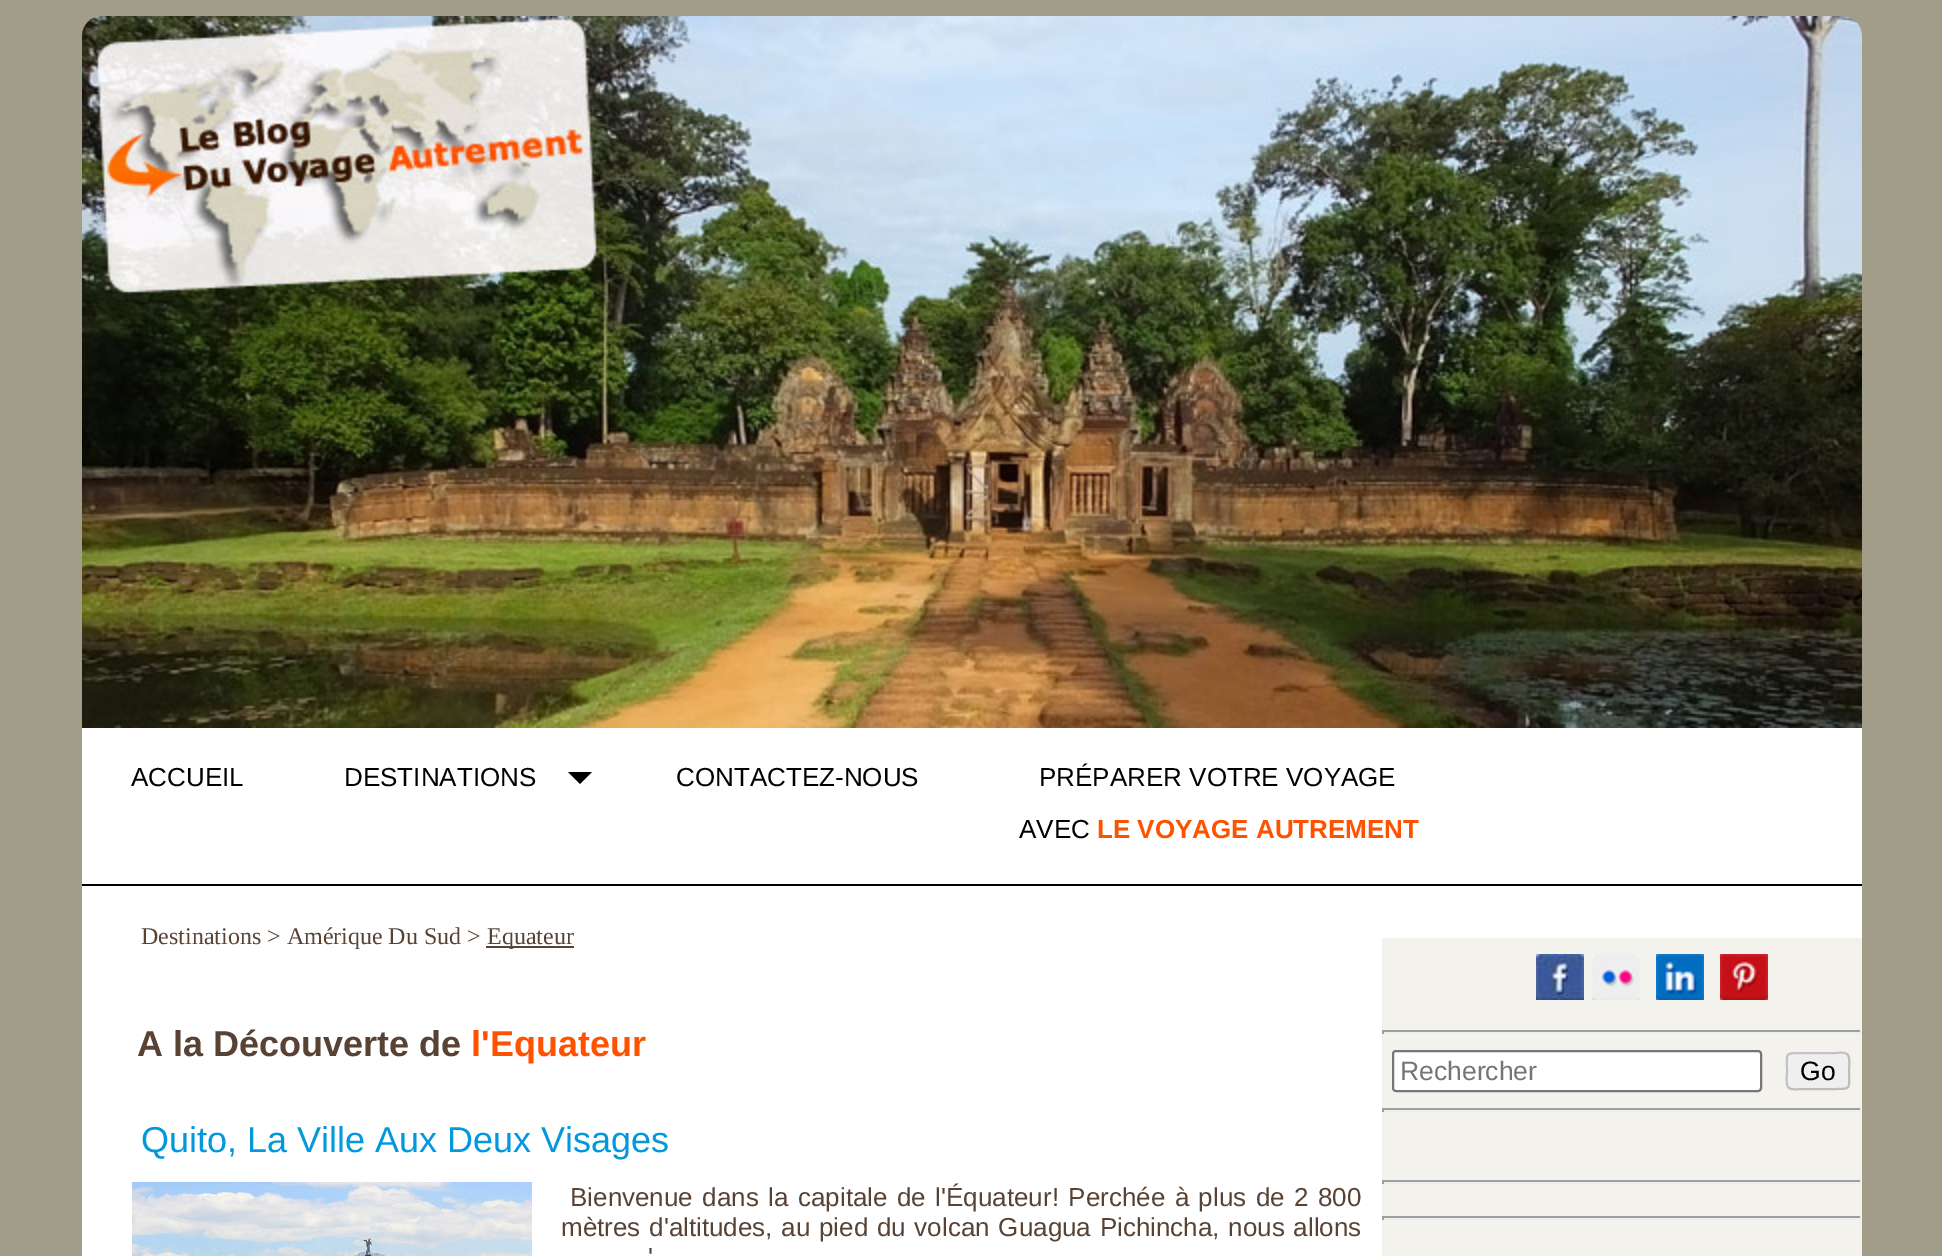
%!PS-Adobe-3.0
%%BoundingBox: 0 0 1942 1256
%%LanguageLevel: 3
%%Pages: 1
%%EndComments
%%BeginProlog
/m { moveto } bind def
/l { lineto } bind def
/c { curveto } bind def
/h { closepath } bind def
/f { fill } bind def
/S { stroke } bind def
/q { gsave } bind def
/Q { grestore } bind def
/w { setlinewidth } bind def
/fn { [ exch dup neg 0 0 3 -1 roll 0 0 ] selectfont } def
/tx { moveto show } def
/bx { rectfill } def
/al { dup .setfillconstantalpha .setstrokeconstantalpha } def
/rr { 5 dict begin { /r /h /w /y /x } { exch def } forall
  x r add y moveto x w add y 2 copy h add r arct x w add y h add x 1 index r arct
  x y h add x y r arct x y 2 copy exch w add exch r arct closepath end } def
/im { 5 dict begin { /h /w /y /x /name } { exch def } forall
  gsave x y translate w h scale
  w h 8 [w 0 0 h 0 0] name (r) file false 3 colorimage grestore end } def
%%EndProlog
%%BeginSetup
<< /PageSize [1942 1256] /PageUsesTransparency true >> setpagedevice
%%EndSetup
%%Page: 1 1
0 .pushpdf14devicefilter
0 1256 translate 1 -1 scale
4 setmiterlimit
0.635 0.616 0.537 setrgbcolor
0 0 1942 1256 bx
(image0.raw) 82 16 1780 712 im
1 setgray
82 728 1780 156 bx
/LiberationSans-Regular 26 fn
0 setgray
(ACCUEIL) 131 786 tx
(DESTINATIONS) 344 786 tx
568 772 m 592 772 l 580 784 l h f
(CONTACTEZ-NOUS) 676 786 tx
(PRÉPARER VOTRE VOYAGE) 1039 786 tx
(AVEC) 1019 838 tx
/LiberationSans-Bold 26 fn
1 0.322 0 setrgbcolor
(LE VOYAGE AUTREMENT) 1097 838 tx
1 setgray
82 886 1780 370 bx
0 setgray
82 884 1780 2 bx
/LiberationSerif-Regular 24 fn
0.341 0.259 0.204 setrgbcolor
(Destinations > Amérique Du Sud >) 141 944 tx
486 946 88 2 bx
(Equateur) 487 944 tx
/LiberationSans-Bold 36 fn
(A la Découverte de) 137 1056 tx
1 0.322 0 setrgbcolor
(l'Equateur) 471 1056 tx
/LiberationSans-Regular 36 fn
0.008 0.596 0.867 setrgbcolor
(Quito, La Ville Aux Deux Visages) 141 1152 tx
(image1.raw) 132 1182 400 74 im
/LiberationSans-Regular 26 fn
0.341 0.259 0.204 setrgbcolor
570 1206 m 2.25 0 32 (Bienvenue dans la capitale de l'Équateur! Perchée à plus de 2 800) widthshow
561 1236 m 1.5 0 32 (mètres d'altitudes, au pied du volcan Guagua Pichincha, nous allons) widthshow
648 1266 m 4 0 32 (') widthshow
0.957 0.949 0.925 setrgbcolor
1382 938 480 318 bx
(image2.raw) 1536 954 48 46 im
(image3.raw) 1592 954 48 46 im
(image4.raw) 1656 954 48 46 im
(image5.raw) 1720 954 48 46 im
0.624 setgray
1382 1030 480 2 bx
0.933 setgray
1860 1030 2 4 bx
1382 1032 480 2 bx
0.624 setgray
1382 1030 2 4 bx
1 setgray
1393 1051 368 40 3 rr q f Q
0.463 setgray
2 w
S
/LiberationSans-Regular 26.5 fn
0.459 setgray
(Rechercher) 1400 1080 tx
0.937 setgray
1786 1052 64 38 6 rr f
0.25 al
0.173 0.153 0.173 setrgbcolor
1847.5 1054.5 m 1850.5 1057.5 1849 1067.5 1849 1071 c 1849 1088.5 1852 1089 1835.5 1089 c 1800.5 1089 l 1798 1089 1791.5 1090.5 1788.5 1087.5 c S
0.259 0.227 0.259 setrgbcolor
1788.5 1087.5 m 1785.5 1084.5 1787 1074.5 1787 1071 c 1787 1053.5 1784 1053 1800.5 1053 c 1835.5 1053 l 1838 1053 1844.5 1051.5 1847.5 1054.5 c S
1 al
0 setgray
(Go) 1800 1080 tx
0.624 setgray
1382 1108 480 2 bx
0.933 setgray
1860 1108 2 4 bx
1382 1110 480 2 bx
0.624 setgray
1382 1108 2 4 bx
1382 1180 480 2 bx
0.933 setgray
1860 1180 2 4 bx
1382 1182 480 2 bx
0.624 setgray
1382 1180 2 4 bx
1382 1216 480 2 bx
0.933 setgray
1860 1216 2 4 bx
1382 1218 480 2 bx
0.624 setgray
1382 1216 2 4 bx
.poppdf14devicefilter showpage
%%EOF
